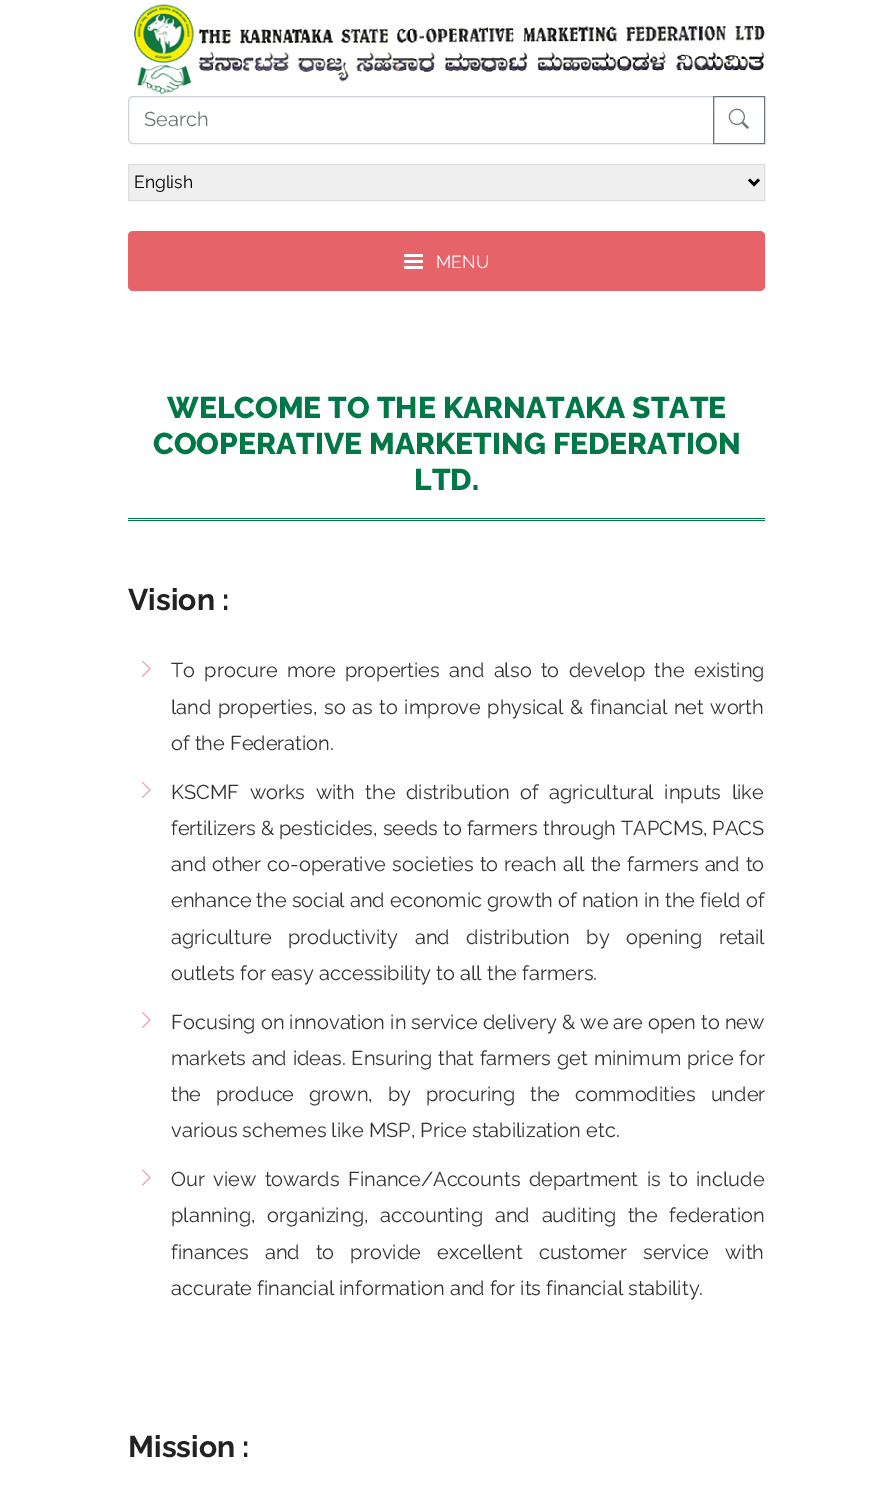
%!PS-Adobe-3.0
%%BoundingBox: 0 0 892 1490
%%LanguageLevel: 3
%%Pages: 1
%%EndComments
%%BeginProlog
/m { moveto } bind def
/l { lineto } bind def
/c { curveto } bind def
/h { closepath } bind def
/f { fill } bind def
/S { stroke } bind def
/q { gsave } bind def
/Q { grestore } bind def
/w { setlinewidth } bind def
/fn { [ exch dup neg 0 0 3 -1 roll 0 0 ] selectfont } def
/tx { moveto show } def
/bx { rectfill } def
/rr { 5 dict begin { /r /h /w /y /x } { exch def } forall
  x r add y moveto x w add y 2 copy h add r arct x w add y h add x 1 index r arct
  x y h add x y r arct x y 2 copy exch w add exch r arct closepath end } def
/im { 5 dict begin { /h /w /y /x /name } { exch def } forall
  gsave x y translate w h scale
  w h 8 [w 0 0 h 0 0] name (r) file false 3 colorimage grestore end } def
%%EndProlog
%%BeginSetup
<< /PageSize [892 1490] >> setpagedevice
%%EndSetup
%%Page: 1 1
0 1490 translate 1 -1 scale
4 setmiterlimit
1 setgray
0 0 892 1490 bx
(image0.raw) 134 4 631 91 im
0.808 0.831 0.855 setrgbcolor
133 96.5 m 713.5 96.5 l 713.5 143.5 l 133 143.5 l 130.5 143.5 128.5 141.5 128.5 139 c 128.5 101 l 128.5 98.5 130.5 96.5 133 96.5 c h S
/Raleway-Regular 20 fn
0.424 0.459 0.49 setrgbcolor
(Search) 144 126 tx
713.5 96.5 51 47 rectstroke
(image1.raw) 728 108 21 21 im
0.937 setgray
128.5 164.5 m 764.5 164.5 l 764.5 200.5 l 128.5 200.5 l h q f Q
0.867 setgray
S
0 setgray
2.5 w
749 179.5 m 754 184.5 l 759 179.5 l S
/Raleway-Regular 17.5 fn
(English) 134 188 tx
0.906 0.388 0.416 setrgbcolor
128 231 637 60 5 rr f
1 setgray
404 254 19 3 1.5 rr f
404 260 19 3 1.5 rr f
404 266 19 3 1.5 rr f
(MENU) 436 268 tx
0 0.467 0.278 setrgbcolor
128 518 637 1 bx
128 520 637 1 bx
/Raleway-ExtraBold 30 fn
(WELCOME TO THE KARNATAKA STATE) 167 418 tx
(COOPERATIVE MARKETING FEDERATION) 153 454 tx
(LTD.) 414 490 tx
/Raleway-Bold 30 fn
0.133 setgray
(Vision :) 128 610 tx
(image2.raw) 141 660 10 17 im
/Raleway-Regular 20 fn
0.2 setgray
171 677 m 4.25 0 32 (To procure more properties and also to develop the existing) widthshow
171 714 m 1.5 0 32 (land properties, so as to improve physical & financial net worth) widthshow
(of the Federation.) 171 750 tx
(image3.raw) 141 782 10 16 im
171 799 m 5.5 0 32 (KSCMF works with the distribution of agricultural inputs like) widthshow
(fertilizers & pesticides, seeds to farmers through TAPCMS, PACS) 171 835 tx
171 871 m 1.1 0 32 (and other co-operative societies to reach all the farmers and to) widthshow
(enhance the social and economic growth of nation in the field of) 171 907 tx
171 944 m 11.5 0 32 (agriculture productivity and distribution by opening retail) widthshow
(outlets for easy accessibility to all the farmers.) 171 980 tx
(image3.raw) 141 1012 10 16 im
(Focusing on innovation in service delivery & we are open to new) 171 1029 tx
171 1065 m 0.75 0 32 (markets and ideas. Ensuring that farmers get minimum price for) widthshow
171 1101 m 9.75 0 32 (the produce grown, by procuring the commodities under) widthshow
(various schemes like MSP, Price stabilization etc.) 171 1137 tx
(image4.raw) 142 1169 9 17 im
171 1186 m 3.25 0 32 (Our view towards Finance/Accounts department is to include) widthshow
171 1222 m 6.5 0 32 (planning, organizing, accounting and auditing the federation) widthshow
171 1259 m 11 0 32 (finances and to provide excellent customer service with) widthshow
(accurate financial information and for its financial stability.) 171 1295 tx
/Raleway-Bold 30 fn
0.133 setgray
(Mission :) 128 1457 tx
showpage
%%EOF
